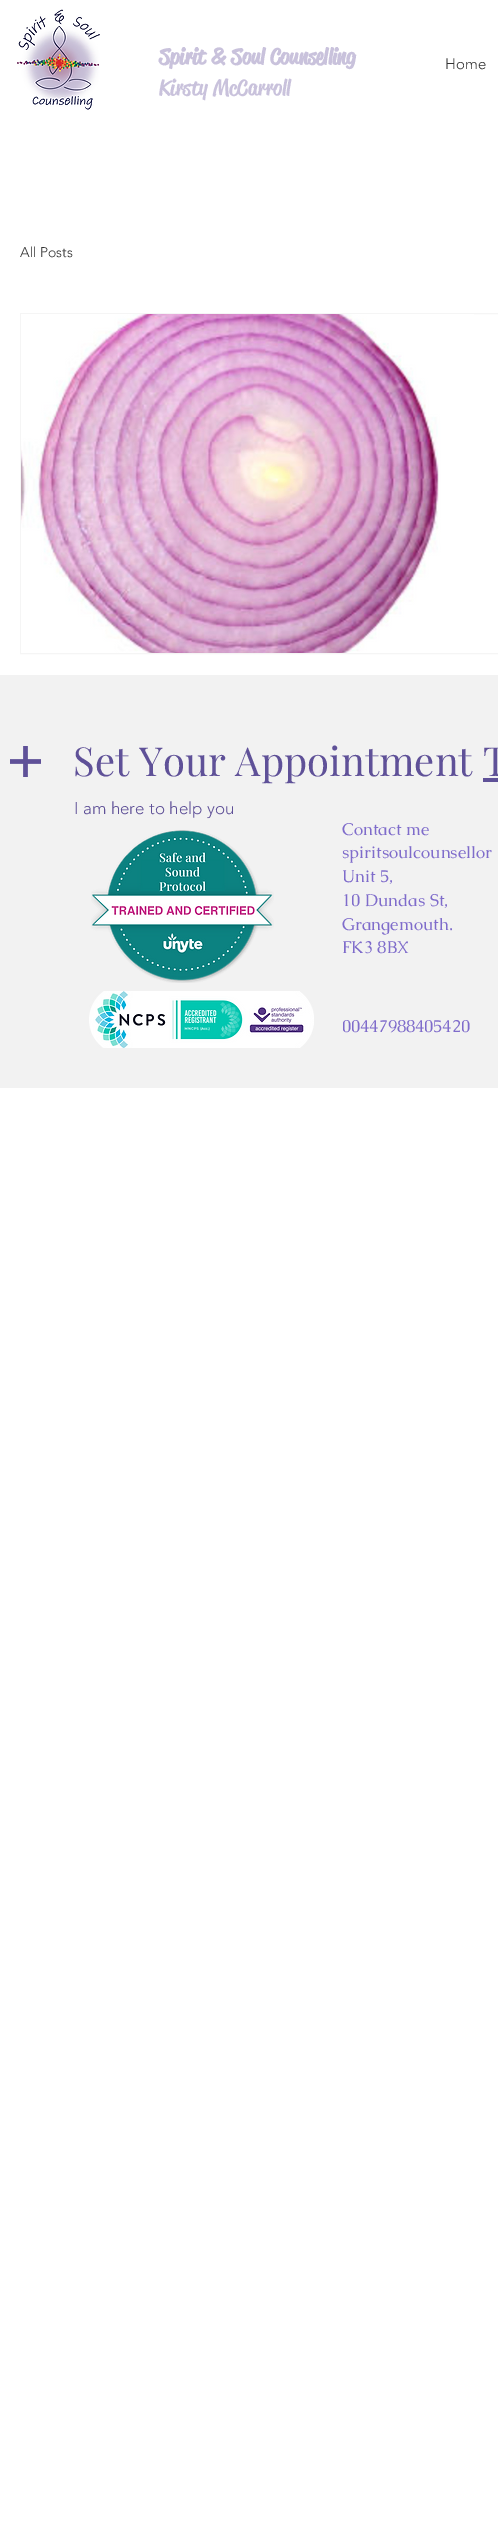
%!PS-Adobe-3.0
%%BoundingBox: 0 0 498 2528
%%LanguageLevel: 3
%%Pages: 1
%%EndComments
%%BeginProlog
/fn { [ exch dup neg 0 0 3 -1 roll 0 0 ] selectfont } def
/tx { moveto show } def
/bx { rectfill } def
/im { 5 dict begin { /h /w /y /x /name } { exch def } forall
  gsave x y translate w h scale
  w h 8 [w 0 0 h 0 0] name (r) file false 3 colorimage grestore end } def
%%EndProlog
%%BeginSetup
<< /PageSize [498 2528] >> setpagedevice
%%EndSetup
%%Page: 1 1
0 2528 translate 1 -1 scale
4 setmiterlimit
1 setgray
0 0 498 2528 bx
(image0.raw) 17 9 83 101 im
/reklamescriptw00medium-Bold 22 fn
0.788 0.761 0.863 setrgbcolor
(Spirit & Soul Counselling) 159 64 tx
/reklamescriptw00medium-Medium 22 fn
(Kirsty McCarroll) 159 95 tx
/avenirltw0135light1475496-Light 15 fn
0.2 setgray
(Home) 445 69 tx
/avenirltw0135light1475496-Light 14 fn
(All Posts) 20 257 tx
0.961 setgray
20.5 313.5 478 340 rectstroke
(image1.raw) 21 314 453 339 im
0.949 setgray
0 675 498 413 bx
(image2.raw) 10 746 31 31 im
/PlayfairDisplay-Regular 40 fn
0.373 0.318 0.596 setrgbcolor
(Set Your Appointment T) 73 776 tx
483 778 15 4 bx
/avenirltw0135light1475496-Light 17 fn
(I am here to help you) 74 814 tx
(image3.raw) 91 830 183 153 im
/Caudex-Regular 17 fn
0.498 0.424 0.796 setrgbcolor
(Contact me) 342 835 tx
(spiritsoulcounsellor) 342 858 tx
(Unit 5,) 342 882 tx
(10 Dundas St,) 342 906 tx
(Grangemouth.) 342 930 tx
(FK3 8BX) 342 953 tx
(image4.raw) 89 991 225 57 im
(00447988405420) 342 1032 tx
showpage
%%EOF
